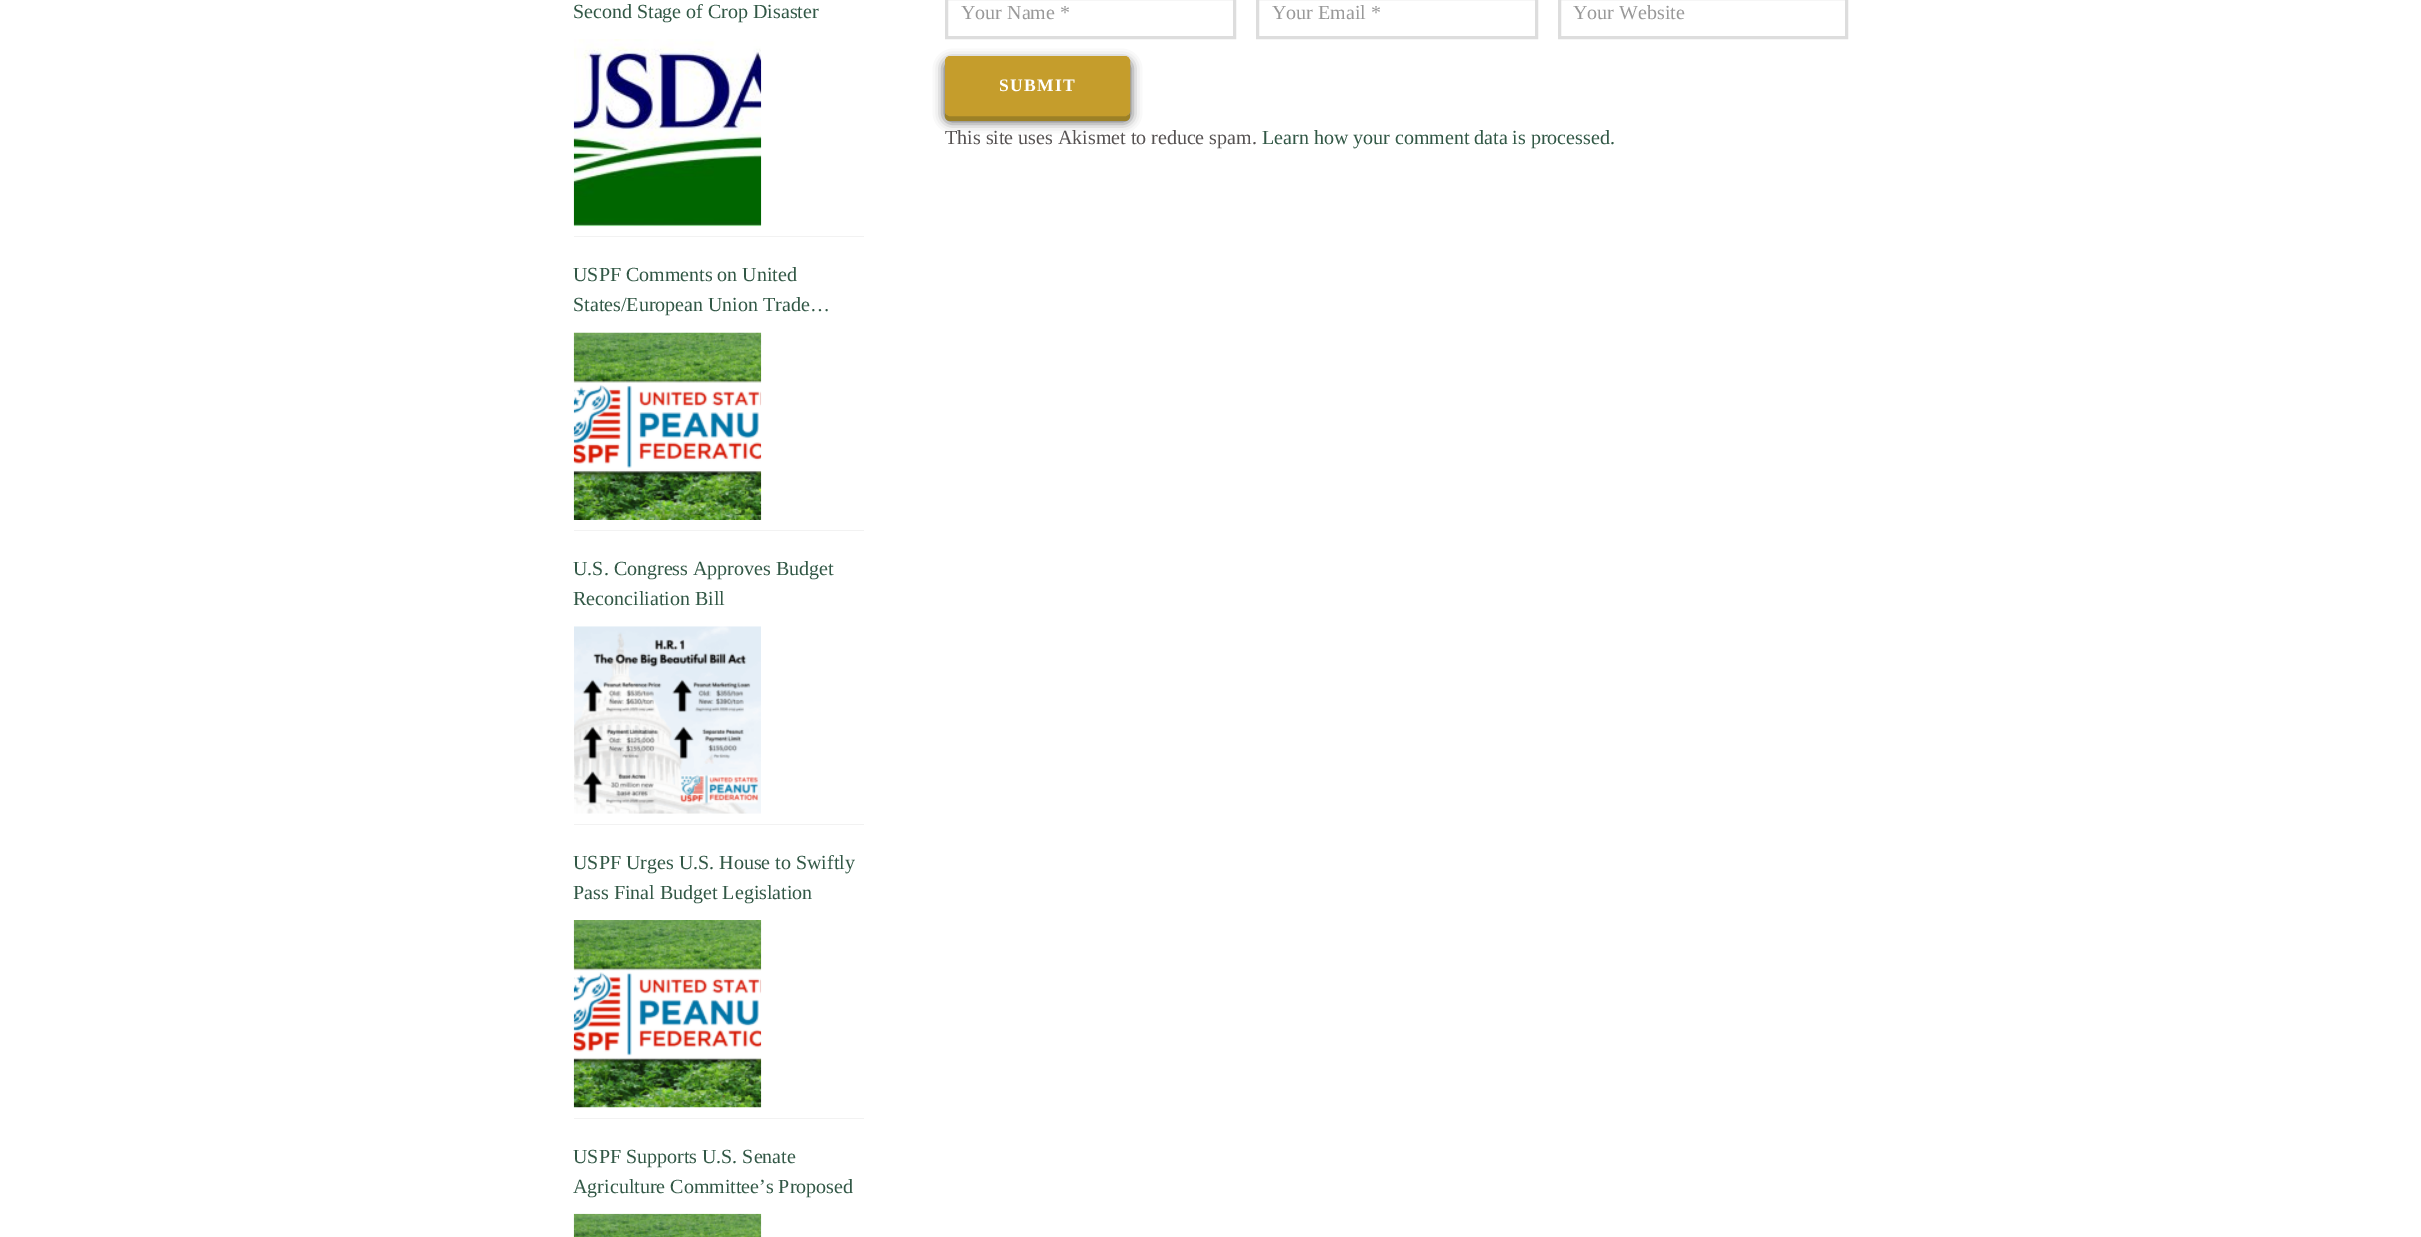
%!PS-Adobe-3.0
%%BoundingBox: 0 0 2421 1237
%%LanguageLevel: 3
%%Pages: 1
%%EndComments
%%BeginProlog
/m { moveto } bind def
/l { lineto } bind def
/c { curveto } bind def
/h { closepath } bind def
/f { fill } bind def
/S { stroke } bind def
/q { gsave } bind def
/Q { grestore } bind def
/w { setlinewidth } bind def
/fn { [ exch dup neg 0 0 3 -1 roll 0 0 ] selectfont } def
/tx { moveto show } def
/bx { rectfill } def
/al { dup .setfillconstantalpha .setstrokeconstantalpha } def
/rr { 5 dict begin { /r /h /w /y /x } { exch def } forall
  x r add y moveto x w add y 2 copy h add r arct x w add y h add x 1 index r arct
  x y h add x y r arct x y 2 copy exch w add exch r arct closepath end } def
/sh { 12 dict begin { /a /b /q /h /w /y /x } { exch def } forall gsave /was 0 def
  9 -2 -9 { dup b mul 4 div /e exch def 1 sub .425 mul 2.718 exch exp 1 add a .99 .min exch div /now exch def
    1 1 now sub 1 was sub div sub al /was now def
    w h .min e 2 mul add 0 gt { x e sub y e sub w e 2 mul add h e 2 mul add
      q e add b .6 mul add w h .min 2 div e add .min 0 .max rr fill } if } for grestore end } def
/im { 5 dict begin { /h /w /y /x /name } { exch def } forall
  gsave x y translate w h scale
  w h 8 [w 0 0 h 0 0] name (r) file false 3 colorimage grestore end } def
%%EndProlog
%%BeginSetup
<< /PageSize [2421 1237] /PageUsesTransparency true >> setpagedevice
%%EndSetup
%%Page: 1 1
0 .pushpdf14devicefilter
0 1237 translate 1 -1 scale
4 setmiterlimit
1 setgray
0 0 2421 1237 bx
0.949 setgray
574 236 290 1 bx
/LiberationSerif-Regular 20 fn
0.196 0.345 0.275 setrgbcolor
(Second Stage of Crop Disaster) 573 18 tx
(image0.raw) 573 39 189 188 im
0.949 setgray
574 530 290 1 bx
0.196 0.345 0.275 setrgbcolor
(USPF Comments on United) 573 281 tx
(States/European Union Trade…) 573 311 tx
(image1.raw) 573 332 189 188 im
0.949 setgray
574 824 290 1 bx
0.196 0.345 0.275 setrgbcolor
(U.S. Congress Approves Budget) 573 575 tx
(Reconciliation Bill) 573 605 tx
(image2.raw) 574 626 187 188 im
0.949 setgray
574 1118 290 1 bx
0.196 0.345 0.275 setrgbcolor
(USPF Urges U.S. House to Swiftly) 573 869 tx
(Pass Final Budget Legislation) 573 899 tx
(image3.raw) 573 920 189 188 im
(USPF Supports U.S. Senate) 573 1163 tx
(Agriculture Committee’s Proposed) 573 1193 tx
(image4.raw) 573 1213 189 24 im
0.867 setgray
3 w
946.5 -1.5 288 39 rectstroke
0.6 setgray
(Your Name *) 961 19 tx
0.867 setgray
1257.5 -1.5 279 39 rectstroke
0.6 setgray
(Your Email *) 1272 19 tx
0.867 setgray
1559.5 -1.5 287 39 rectstroke
0.6 setgray
(Your Website) 1573 19 tx
0 setgray
945 61 185 60 5 5.5 0.75 sh
0.612 0.506 0.149 setrgbcolor
945 112 m 945 116 l 945 119 947 121 950 121 c 1125 121 l 1128 121 1130 119 1130 116 c 1130 112 l 1130 114 1128 116 1126 116 c 949 116 l 947 116 945 114 945 112 c h f
0.773 0.616 0.173 setrgbcolor
945.5 56.5 184 59 4.5 rr q f Q
1 w
S
/LiberationSerif-Bold 17.5 fn
1 setgray
999 91 m 1.25 0 (SUBMIT) ashow
/LiberationSerif-Regular 20 fn
0.337 0.322 0.322 setrgbcolor
(This site uses Akismet to reduce spam.) 945 144 tx
0.196 0.345 0.275 setrgbcolor
(Learn how your comment data is processed.) 1262 144 tx
.poppdf14devicefilter showpage
%%EOF
